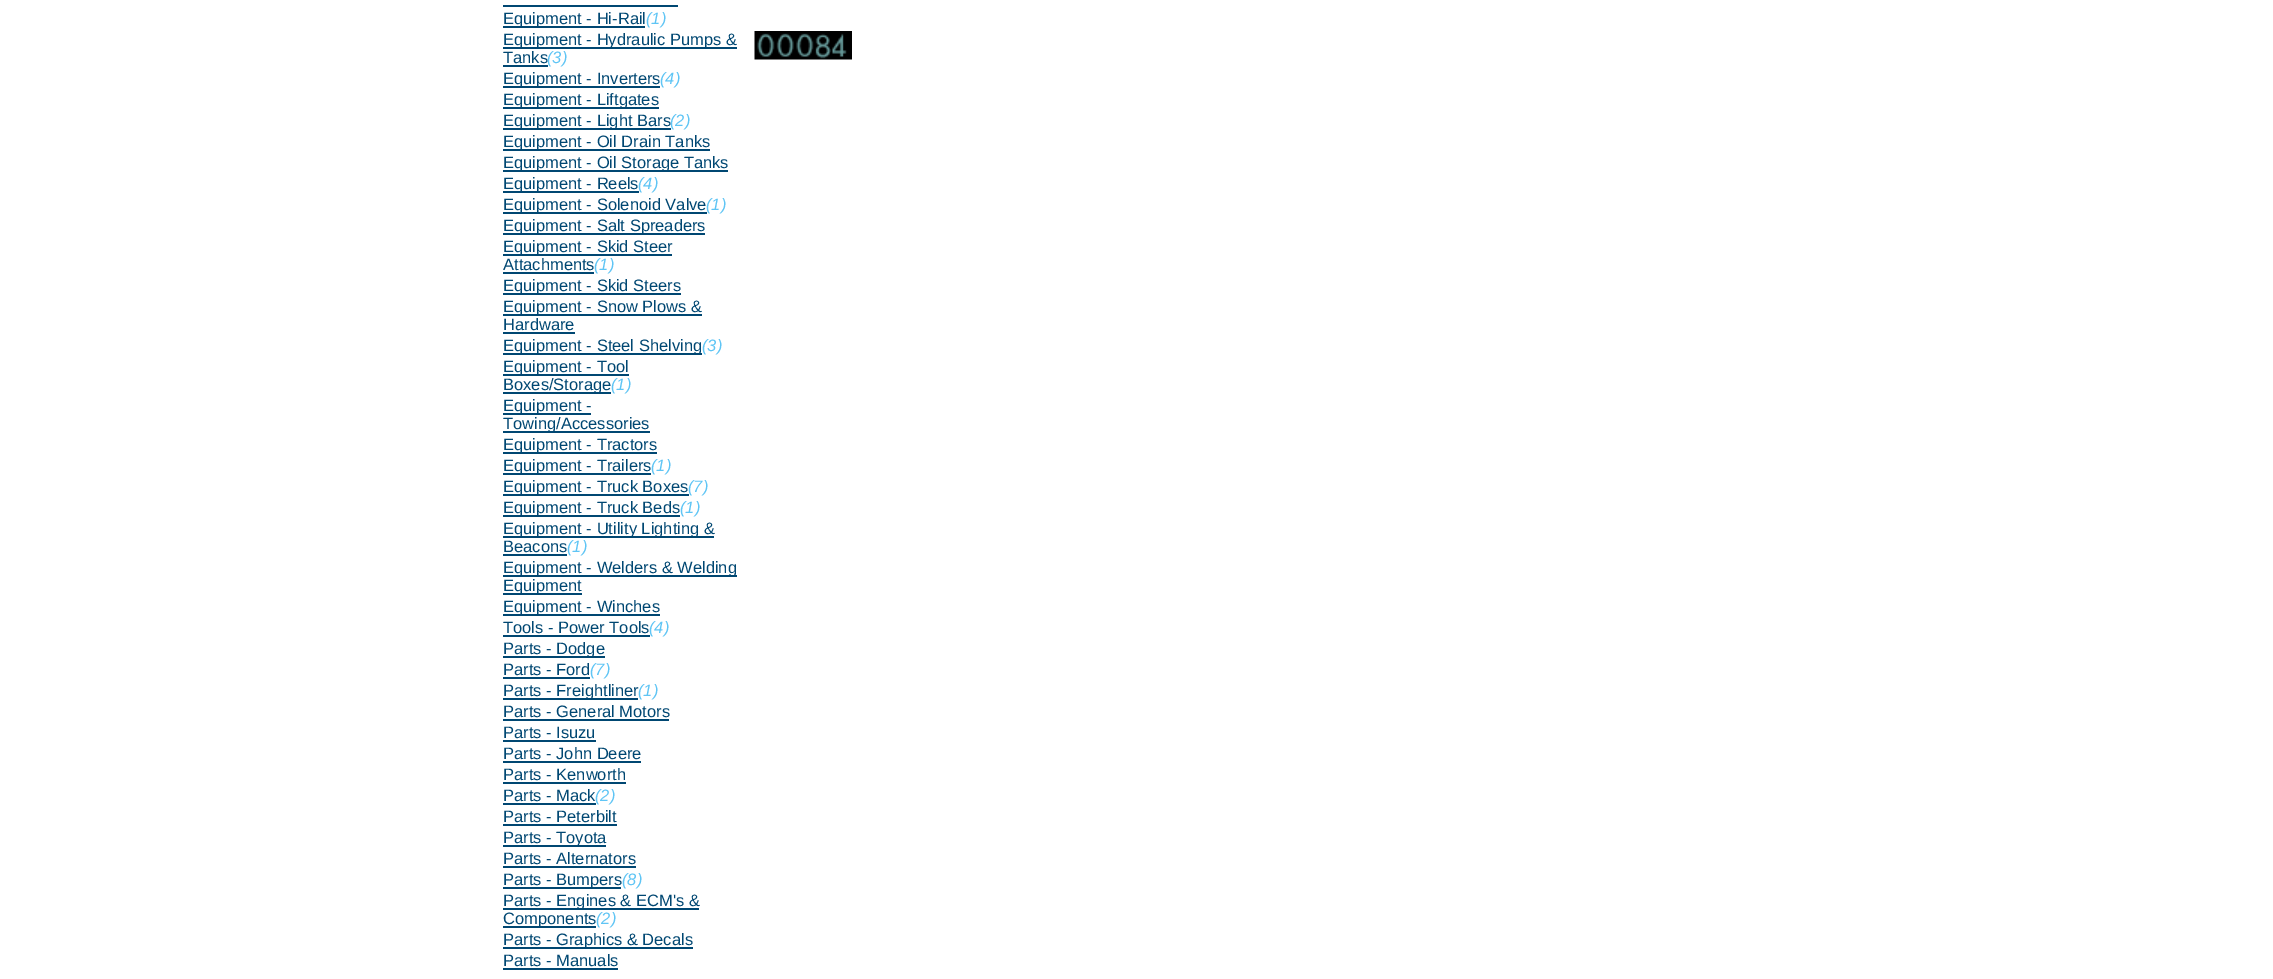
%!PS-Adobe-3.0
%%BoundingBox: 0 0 2273 979
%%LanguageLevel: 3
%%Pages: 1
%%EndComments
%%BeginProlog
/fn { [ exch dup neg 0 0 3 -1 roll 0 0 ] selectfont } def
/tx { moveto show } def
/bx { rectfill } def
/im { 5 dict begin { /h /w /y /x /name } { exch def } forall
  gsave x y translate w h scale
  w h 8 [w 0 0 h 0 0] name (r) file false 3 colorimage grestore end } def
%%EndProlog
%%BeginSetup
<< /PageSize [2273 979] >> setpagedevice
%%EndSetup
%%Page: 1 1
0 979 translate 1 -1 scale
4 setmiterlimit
1 setgray
0 0 2273 979 bx
0 0.278 0.447 setrgbcolor
503 5 175 2 bx
503 26 142 2 bx
/LiberationSans-Regular 16.5 fn
(Equipment - Hi-Rail) 503 24 tx
/LiberationSans-Italic 16.5 fn
0.373 0.773 0.961 setrgbcolor
(\(1\)) 646 24 tx
0 0.278 0.447 setrgbcolor
503 47 234 2 bx
/LiberationSans-Regular 16.5 fn
(Equipment - Hydraulic Pumps &) 503 45 tx
(Tanks) 503 63 tx
503 65 45 2 bx
/LiberationSans-Italic 16.5 fn
0.373 0.773 0.961 setrgbcolor
(\(3\)) 547 63 tx
0 0.278 0.447 setrgbcolor
503 86 157 2 bx
/LiberationSans-Regular 16.5 fn
(Equipment - Inverters) 503 84 tx
/LiberationSans-Italic 16.5 fn
0.373 0.773 0.961 setrgbcolor
(\(4\)) 660 84 tx
0 0.278 0.447 setrgbcolor
503 107 156 2 bx
/LiberationSans-Regular 16.5 fn
(Equipment - Liftgates) 503 105 tx
503 128 168 2 bx
(Equipment - Light Bars) 503 126 tx
/LiberationSans-Italic 16.5 fn
0.373 0.773 0.961 setrgbcolor
(\(2\)) 670 126 tx
0 0.278 0.447 setrgbcolor
503 149 207 2 bx
/LiberationSans-Regular 16.5 fn
(Equipment - Oil Drain Tanks) 503 147 tx
503 170 225 2 bx
(Equipment - Oil Storage Tanks) 503 168 tx
503 191 136 2 bx
(Equipment - Reels) 503 189 tx
/LiberationSans-Italic 16.5 fn
0.373 0.773 0.961 setrgbcolor
(\(4\)) 638 189 tx
0 0.278 0.447 setrgbcolor
503 212 204 2 bx
/LiberationSans-Regular 16.5 fn
(Equipment - Solenoid Valve) 503 210 tx
/LiberationSans-Italic 16.5 fn
0.373 0.773 0.961 setrgbcolor
(\(1\)) 706 210 tx
0 0.278 0.447 setrgbcolor
503 233 202 2 bx
/LiberationSans-Regular 16.5 fn
(Equipment - Salt Spreaders) 503 231 tx
503 254 169 2 bx
(Equipment - Skid Steer) 503 252 tx
(Attachments) 503 270 tx
503 272 91 2 bx
/LiberationSans-Italic 16.5 fn
0.373 0.773 0.961 setrgbcolor
(\(1\)) 594 270 tx
0 0.278 0.447 setrgbcolor
503 293 178 2 bx
/LiberationSans-Regular 16.5 fn
(Equipment - Skid Steers) 503 291 tx
503 314 199 2 bx
(Equipment - Snow Plows &) 503 312 tx
(Hardware) 503 330 tx
503 332 72 2 bx
503 353 199 2 bx
(Equipment - Steel Shelving) 503 351 tx
/LiberationSans-Italic 16.5 fn
0.373 0.773 0.961 setrgbcolor
(\(3\)) 702 351 tx
0 0.278 0.447 setrgbcolor
503 374 126 2 bx
/LiberationSans-Regular 16.5 fn
(Equipment - Tool) 503 372 tx
503 392 108 2 bx
(Boxes/Storage) 503 390 tx
/LiberationSans-Italic 16.5 fn
0.373 0.773 0.961 setrgbcolor
(\(1\)) 611 390 tx
0 0.278 0.447 setrgbcolor
503 413 88 2 bx
/LiberationSans-Regular 16.5 fn
(Equipment -) 503 411 tx
503 431 147 2 bx
(Towing/Accessories) 503 429 tx
503 452 154 2 bx
(Equipment - Tractors) 503 450 tx
503 473 148 2 bx
(Equipment - Trailers) 503 471 tx
/LiberationSans-Italic 16.5 fn
0.373 0.773 0.961 setrgbcolor
(\(1\)) 651 471 tx
0 0.278 0.447 setrgbcolor
503 494 186 2 bx
/LiberationSans-Regular 16.5 fn
(Equipment - Truck Boxes) 503 492 tx
/LiberationSans-Italic 16.5 fn
0.373 0.773 0.961 setrgbcolor
(\(7\)) 688 492 tx
0 0.278 0.447 setrgbcolor
503 515 177 2 bx
/LiberationSans-Regular 16.5 fn
(Equipment - Truck Beds) 503 513 tx
/LiberationSans-Italic 16.5 fn
0.373 0.773 0.961 setrgbcolor
(\(1\)) 680 513 tx
0 0.278 0.447 setrgbcolor
503 536 211 2 bx
/LiberationSans-Regular 16.5 fn
(Equipment - Utility Lighting &) 503 534 tx
(Beacons) 503 552 tx
503 554 64 2 bx
/LiberationSans-Italic 16.5 fn
0.373 0.773 0.961 setrgbcolor
(\(1\)) 567 552 tx
0 0.278 0.447 setrgbcolor
503 575 234 2 bx
/LiberationSans-Regular 16.5 fn
(Equipment - Welders & Welding) 503 573 tx
503 593 79 2 bx
(Equipment) 503 591 tx
503 614 157 2 bx
(Equipment - Winches) 503 612 tx
(Tools - Power Tools) 503 633 tx
503 635 147 2 bx
/LiberationSans-Italic 16.5 fn
0.373 0.773 0.961 setrgbcolor
(\(4\)) 649 633 tx
0 0.278 0.447 setrgbcolor
503 656 102 2 bx
/LiberationSans-Regular 16.5 fn
(Parts - Dodge) 503 654 tx
(Parts - Ford) 503 675 tx
503 677 87 2 bx
/LiberationSans-Italic 16.5 fn
0.373 0.773 0.961 setrgbcolor
(\(7\)) 590 675 tx
0 0.278 0.447 setrgbcolor
503 698 135 2 bx
/LiberationSans-Regular 16.5 fn
(Parts - Freightliner) 503 696 tx
/LiberationSans-Italic 16.5 fn
0.373 0.773 0.961 setrgbcolor
(\(1\)) 638 696 tx
/LiberationSans-Regular 16.5 fn
0 0.278 0.447 setrgbcolor
(Parts - General Motors) 503 717 tx
503 719 166 2 bx
(Parts - Isuzu) 503 738 tx
503 740 93 2 bx
(Parts - John Deere) 503 759 tx
503 761 138 2 bx
(Parts - Kenworth) 503 780 tx
503 782 123 2 bx
(Parts - Mack) 503 801 tx
503 803 93 2 bx
/LiberationSans-Italic 16.5 fn
0.373 0.773 0.961 setrgbcolor
(\(2\)) 595 801 tx
/LiberationSans-Regular 16.5 fn
0 0.278 0.447 setrgbcolor
(Parts - Peterbilt) 503 822 tx
503 824 114 2 bx
503 845 103 2 bx
(Parts - Toyota) 503 843 tx
(Parts - Alternators) 503 864 tx
503 866 133 2 bx
503 887 118 2 bx
(Parts - Bumpers) 503 885 tx
/LiberationSans-Italic 16.5 fn
0.373 0.773 0.961 setrgbcolor
(\(8\)) 622 885 tx
0 0.278 0.447 setrgbcolor
503 908 196 2 bx
/LiberationSans-Regular 16.5 fn
(Parts - Engines & ECM's &) 503 906 tx
503 926 93 2 bx
(Components) 503 924 tx
/LiberationSans-Italic 16.5 fn
0.373 0.773 0.961 setrgbcolor
(\(2\)) 596 924 tx
0 0.278 0.447 setrgbcolor
503 947 190 2 bx
/LiberationSans-Regular 16.5 fn
(Parts - Graphics & Decals) 503 945 tx
(Parts - Manuals) 503 966 tx
503 968 115 2 bx
(image0.raw) 754 31 98 29 im
showpage
%%EOF
